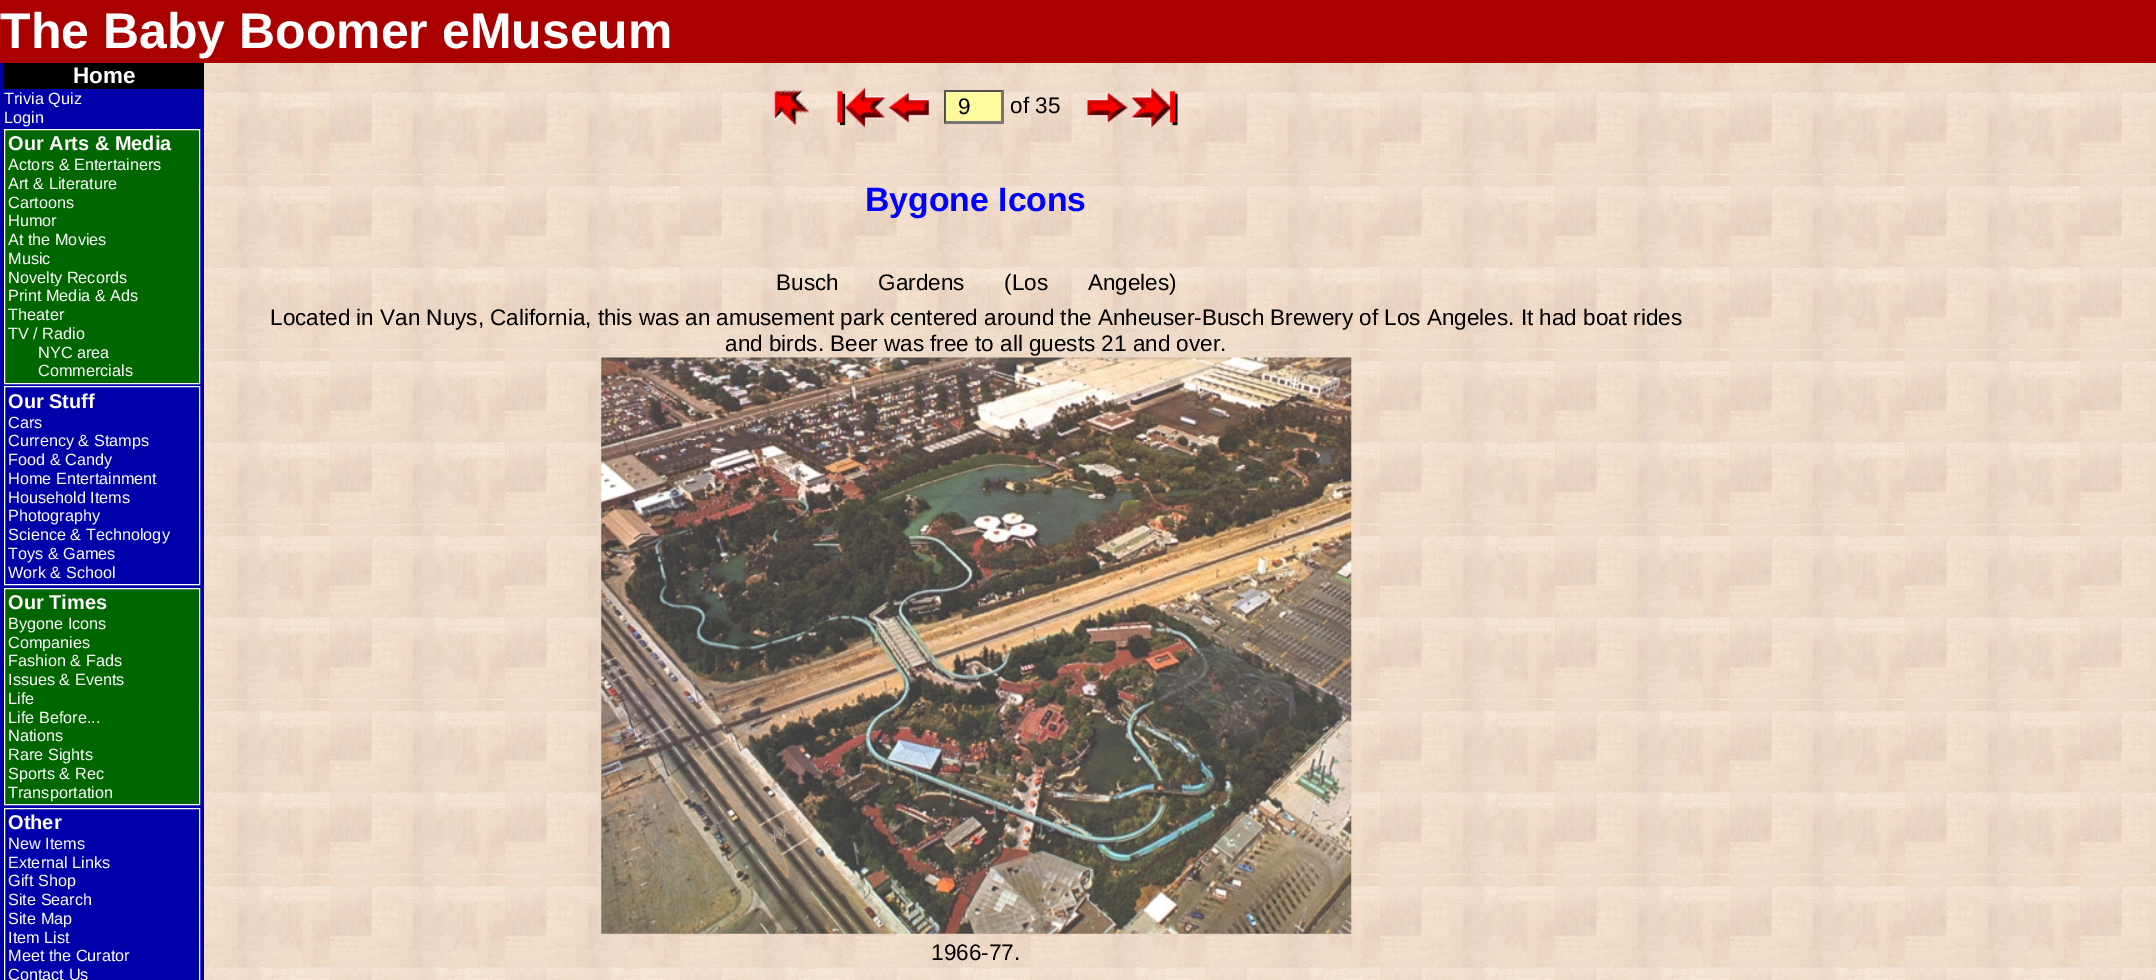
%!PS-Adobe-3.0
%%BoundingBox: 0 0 2156 980
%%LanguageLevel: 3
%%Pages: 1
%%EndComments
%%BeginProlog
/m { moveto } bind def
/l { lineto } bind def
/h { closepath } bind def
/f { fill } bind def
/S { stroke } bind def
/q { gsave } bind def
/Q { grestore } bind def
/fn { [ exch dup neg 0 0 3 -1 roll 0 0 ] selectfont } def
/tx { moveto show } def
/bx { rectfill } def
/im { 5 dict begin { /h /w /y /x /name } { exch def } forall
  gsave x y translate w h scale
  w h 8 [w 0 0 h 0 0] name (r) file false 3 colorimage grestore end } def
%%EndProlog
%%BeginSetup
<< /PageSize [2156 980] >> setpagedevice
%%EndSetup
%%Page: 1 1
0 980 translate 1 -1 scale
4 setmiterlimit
1 setgray
0 0 2156 980 bx
(image0.raw) 204 63 1952 917 im
0.667 0 0 setrgbcolor
0 0 2156 63 bx
/LiberationSans-Bold 50 fn
1 setgray
(The Baby Boomer eMuseum) 0 48 tx
0 0 0.667 setrgbcolor
0 63 204 917 bx
0 setgray
4 63 200 26 bx
/LiberationSans-Bold 22.5 fn
1 setgray
(Home) 73 83 tx
/LiberationSans-Regular 16.25 fn
(Trivia Quiz) 4 104 tx
(Login) 4 123 tx
0 0.4 0 setrgbcolor
4.5 129.5 m 199.5 129.5 l 199.5 383.5 l 4.5 383.5 l h q f Q
1 setgray
S
/LiberationSans-Bold 20 fn
(Our Arts & Media) 8 150 tx
/LiberationSans-Regular 16.25 fn
(Actors & Entertainers) 8 170 tx
(Art & Literature) 8 189 tx
(Cartoons) 8 208 tx
(Humor) 8 226 tx
(At the Movies) 8 245 tx
(Music) 8 264 tx
(Novelty Records) 8 283 tx
(Print Media & Ads) 8 301 tx
0 0.4 0 setrgbcolor
54 286 3 1 bx
1 setgray
(Theater) 8 320 tx
(TV / Radio) 8 339 tx
(NYC area) 38 358 tx
(Commercials) 38 376 tx
4.5 386.5 195 198 rectstroke
/LiberationSans-Bold 20 fn
(Our Stuff) 8 408 tx
/LiberationSans-Regular 16.25 fn
(Cars) 8 428 tx
(Currency & Stamps) 8 446 tx
(Food & Candy) 8 465 tx
(Home Entertainment) 8 484 tx
(Household Items) 8 503 tx
(Photography) 8 521 tx
(Science & Technology) 8 540 tx
(Toys & Games) 8 559 tx
(Work & School) 8 578 tx
0 0.4 0 setrgbcolor
4.5 588.5 m 199.5 588.5 l 199.5 804.5 l 4.5 804.5 l h q f Q
1 setgray
S
/LiberationSans-Bold 20 fn
(Our Times) 8 609 tx
/LiberationSans-Regular 16.25 fn
(Bygone Icons) 8 629 tx
(Companies) 8 648 tx
(Fashion & Fads) 8 666 tx
0 0.4 0 setrgbcolor
43 651 2 1 bx
1 setgray
(Issues & Events) 8 685 tx
(Life) 8 704 tx
(Life Before...) 8 723 tx
(Nations) 8 741 tx
(Rare Sights) 8 760 tx
(Sports & Rec) 8 779 tx
(Transportation) 8 798 tx
4.5 808.5 195 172 rectstroke
/LiberationSans-Bold 20 fn
(Other) 8 829 tx
/LiberationSans-Regular 16.25 fn
(New Items) 8 849 tx
(External Links) 8 868 tx
(Gift Shop) 8 886 tx
(Site Search) 8 905 tx
(Site Map) 8 924 tx
(Item List) 8 943 tx
(Meet the Curator) 8 961 tx
(Contact Us) 8 980 tx
(image1.raw) 773 89 37 38 im
(image2.raw) 837 87 48 41 im
(image3.raw) 888 92 41 31 im
1 0.976 0.616 setrgbcolor
944 90 60 34 bx
0.31 setgray
944 90 m 1004 90 l 1001 92 l 946 92 l h f
0.463 setgray
1004 90 m 1004 124 l 1001 121 l 1001 92.5 l h f
1004 124 m 944 124 l 946 121 l 1001 121 l h f
0.31 setgray
944 124 m 944 90 l 946 92.5 l 946 121 l h f
/LiberationSans-Regular 22.5 fn
0 setgray
(9) 958 114 tx
(of 35) 1010 113 tx
(image4.raw) 1087 92 41 31 im
(image5.raw) 1131 87 47 41 im
/LiberationSans-Bold 33.75 fn
0 0 1 setrgbcolor
(Bygone Icons) 865 211 tx
/LiberationSans-Regular 22.5 fn
0 setgray
776 290 m 33.5 0 32 (Busch Gardens \(Los Angeles\)) widthshow
(Located in Van Nuys, California, this was an amusement park centered around the Anheuser-Busch Brewery of Los Angeles. It had boat rides) 270 325 tx
(and birds. Beer was free to all guests 21 and over.) 725 351 tx
(image6.raw) 601 357 751 577 im
(1966-77.) 931 960 tx
showpage
%%EOF
